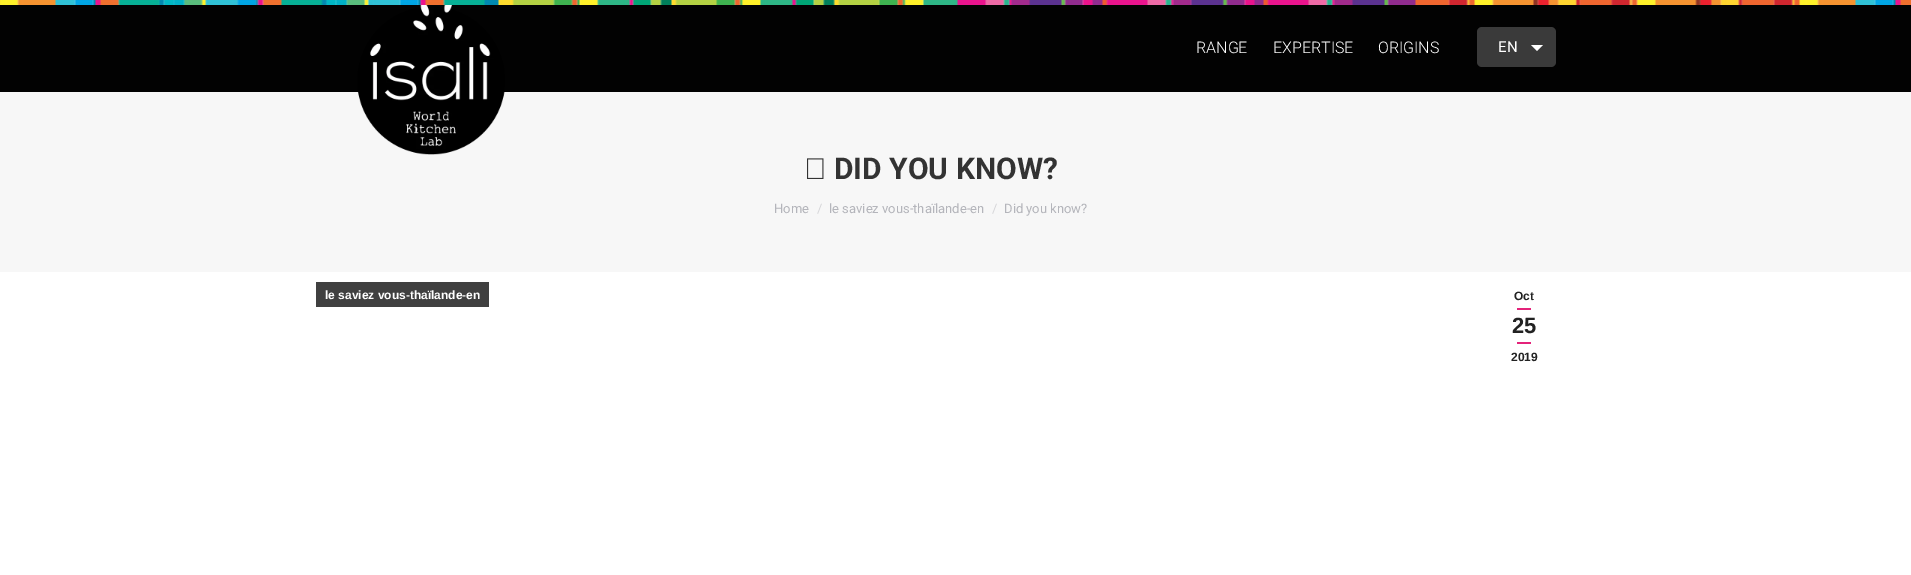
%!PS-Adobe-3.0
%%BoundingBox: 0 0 1911 575
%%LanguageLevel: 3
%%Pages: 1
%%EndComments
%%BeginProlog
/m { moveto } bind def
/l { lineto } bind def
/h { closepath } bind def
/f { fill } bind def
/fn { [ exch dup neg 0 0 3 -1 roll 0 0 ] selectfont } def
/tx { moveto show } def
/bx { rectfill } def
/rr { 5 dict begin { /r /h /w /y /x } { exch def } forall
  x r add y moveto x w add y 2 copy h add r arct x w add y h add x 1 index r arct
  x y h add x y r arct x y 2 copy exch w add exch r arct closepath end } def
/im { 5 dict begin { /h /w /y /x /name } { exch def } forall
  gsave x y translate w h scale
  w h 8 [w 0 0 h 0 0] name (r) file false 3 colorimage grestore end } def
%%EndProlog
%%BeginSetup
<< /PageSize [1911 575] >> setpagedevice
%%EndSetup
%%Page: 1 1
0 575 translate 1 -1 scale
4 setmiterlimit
1 setgray
0 0 1911 575 bx
0.008 setgray
0 5 1911 87 bx
(image0.raw) 0 0 1911 5 im
0.969 setgray
0 92 1911 180 bx
(image1.raw) 357 5 148 150 im
/Roboto-Light 16 fn
1 setgray
(RANGE) 1196 53 tx
(EXPERTISE) 1273 53 tx
(ORIGINS) 1378 53 tx
0.227 setgray
1477 27 79 40 5 rr f
/Roboto-Regular 15 fn
1 setgray
(EN) 1498 52 tx
1531 45 m 1543 45 l 1537 51 l h f
(image2.raw) 807 158 17 21 im
/Roboto-Bold 30 fn
0.2 setgray
(DID YOU KNOW?) 834 179 tx
/Roboto-Regular 13 fn
0.706 0.71 0.733 setrgbcolor
(Home) 774 213 tx
0.839 0.839 0.851 setrgbcolor
(/) 817 213 tx
0.706 0.71 0.733 setrgbcolor
(le saviez vous-thaïlande-en) 829 213 tx
0.839 0.839 0.851 setrgbcolor
(/) 992 213 tx
0.706 0.71 0.733 setrgbcolor
(Did you know?) 1004 213 tx
0.251 setgray
316 282 173 25 bx
/LiberationSans-Bold 12 fn
1 setgray
(le saviez vous-thaïlande-en) 325 299 tx
0.133 setgray
(Oct) 1514 300 tx
0.894 0.137 0.478 setrgbcolor
1517 308 14 2 bx
/LiberationSans-Bold 22 fn
0.133 setgray
(25) 1512 333 tx
0.894 0.137 0.478 setrgbcolor
1517 342 14 2 bx
/LiberationSans-Bold 12 fn
0.133 setgray
(2019) 1511 361 tx
showpage
%%EOF
